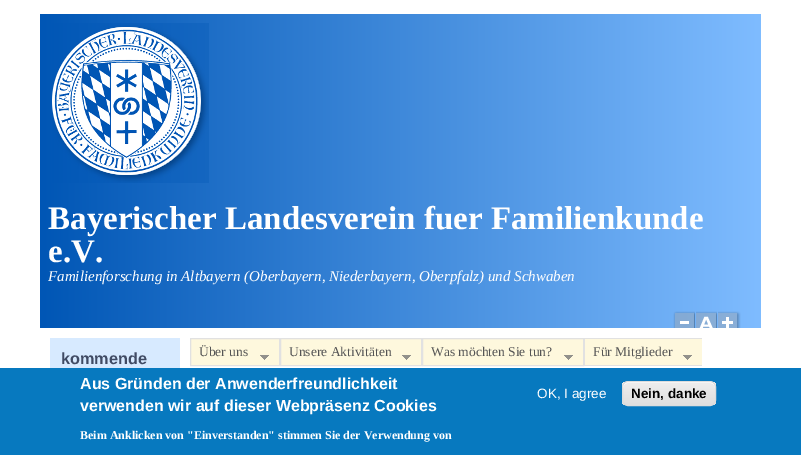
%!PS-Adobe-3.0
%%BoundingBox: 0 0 801 455
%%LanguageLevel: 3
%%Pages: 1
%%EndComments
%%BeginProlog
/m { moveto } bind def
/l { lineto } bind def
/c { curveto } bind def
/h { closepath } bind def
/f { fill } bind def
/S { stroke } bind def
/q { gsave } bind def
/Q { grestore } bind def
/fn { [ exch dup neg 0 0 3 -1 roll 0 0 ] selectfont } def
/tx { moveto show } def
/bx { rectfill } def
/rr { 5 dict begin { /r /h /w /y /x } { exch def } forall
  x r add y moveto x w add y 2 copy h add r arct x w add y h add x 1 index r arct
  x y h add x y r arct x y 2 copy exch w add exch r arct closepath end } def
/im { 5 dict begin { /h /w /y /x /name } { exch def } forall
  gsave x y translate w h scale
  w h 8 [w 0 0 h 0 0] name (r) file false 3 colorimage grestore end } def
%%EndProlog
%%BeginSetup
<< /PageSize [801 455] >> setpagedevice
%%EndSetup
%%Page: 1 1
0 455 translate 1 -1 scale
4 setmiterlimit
1 setgray
0 0 801 455 bx
q 40 14 m 761 14 l 761 328 l 40 328 l h clip newpath
<< /ShadingType 2 /ColorSpace /DeviceRGB /Coords [40 171 761 171] /Extend [true true] /Function << /FunctionType 2 /Domain [0 1] /C0 [0 0.337 0.71] /C1 [0.498 0.737 1] /N 1 >> >> shfill Q
(image0.raw) 52 23 157 160 im
/LiberationSerif-Bold 33 fn
(Bayerischer Landesverein fuer Familienkunde) 48 229 tx
(e.V.) 48 262 tx
/LiberationSerif-Italic 15 fn
(Familienforschung in Altbayern \(Oberbayern, Niederbayern, Oberpfalz\) und Schwaben) 48 281 tx
(image1.raw) 673 311 22 17 im
(image2.raw) 696 311 21 17 im
(image3.raw) 718 311 23 17 im
0.843 0.918 1 setrgbcolor
50 338 130 30 bx
/LiberationSans-Bold 16.25 fn
0.251 0.294 0.392 setrgbcolor
(kommende) 61 364 tx
0.996 0.973 0.867 setrgbcolor
190.5 338.5 m 279.5 338.5 l 279.5 365.5 l 190.5 365.5 l h q f Q
0.882 setgray
S
/LiberationSerif-Regular 13.5 fn
0.333 setgray
(Über uns) 199 356 tx
(image4.raw) 260 355 9 5 im
0.996 0.973 0.867 setrgbcolor
280.5 338.5 m 421.5 338.5 l 421.5 365.5 l 280.5 365.5 l h q f Q
0.882 setgray
S
0.333 setgray
(Unsere Aktivitäten) 289 356 tx
(image4.raw) 402 355 9 5 im
0.996 0.973 0.867 setrgbcolor
422.5 338.5 m 583.5 338.5 l 583.5 365.5 l 422.5 365.5 l h q f Q
0.882 setgray
S
0.333 setgray
(Was möchten Sie tun?) 431 356 tx
(image4.raw) 564 355 9 5 im
0.996 0.973 0.867 setrgbcolor
585 339 117 26 bx
0.882 setgray
584 338 118 1 bx
584 365 118 1 bx
584 338 1 28 bx
0.333 setgray
(Für Mitglieder) 593 356 tx
(image4.raw) 683 355 9 5 im
0.027 0.475 0.749 setrgbcolor
0 368 801 87 bx
/LiberationSans-Bold 16 fn
1 setgray
(Aus Gründen der Anwenderfreundlichkeit) 80 389 tx
(verwenden wir auf dieser Webpräsenz Cookies) 80 411 tx
/LiberationSerif-Bold 12 fn
(Beim Anklicken von "Einverstanden" stimmen Sie der Verwendung von) 80 439 tx
/LiberationSans-Regular 13.5 fn
(OK, I agree) 537 398 tx
q
622 381 94 25 6 rr clip newpath
q 622 382 m 716 382 l 716 405 l 622 405 l h clip newpath
<< /ShadingType 2 /ColorSpace /DeviceRGB /Coords [669 382 669 405] /Extend [true true] /Function << /FunctionType 3 /Domain [0 1] /Functions [<< /FunctionType 2 /Domain [0 1] /C0 [0.929 0.929 0.929] /C1 [0.929 0.929 0.929] /N 1 >> << /FunctionType 2 /Domain [0 1] /C0 [0.929 0.929 0.929] /C1 [0.875 0.875 0.875] /N 1 >>] /Bounds [0.05] /Encode [0 1 0 1] >> >> shfill Q
Q
628 383 m 710 383 l 713 383 715 385 715 388 c 715 379 702 382 696 382 c 642 382 l 636 382 623 379 623 388 c 623 385 625 383 628 383 c h f
0.863 setgray
622.5 381.5 93 24 5.5 rr S
/LiberationSans-Bold 13.5 fn
0 setgray
(Nein, danke) 631 398 tx
showpage
%%EOF
